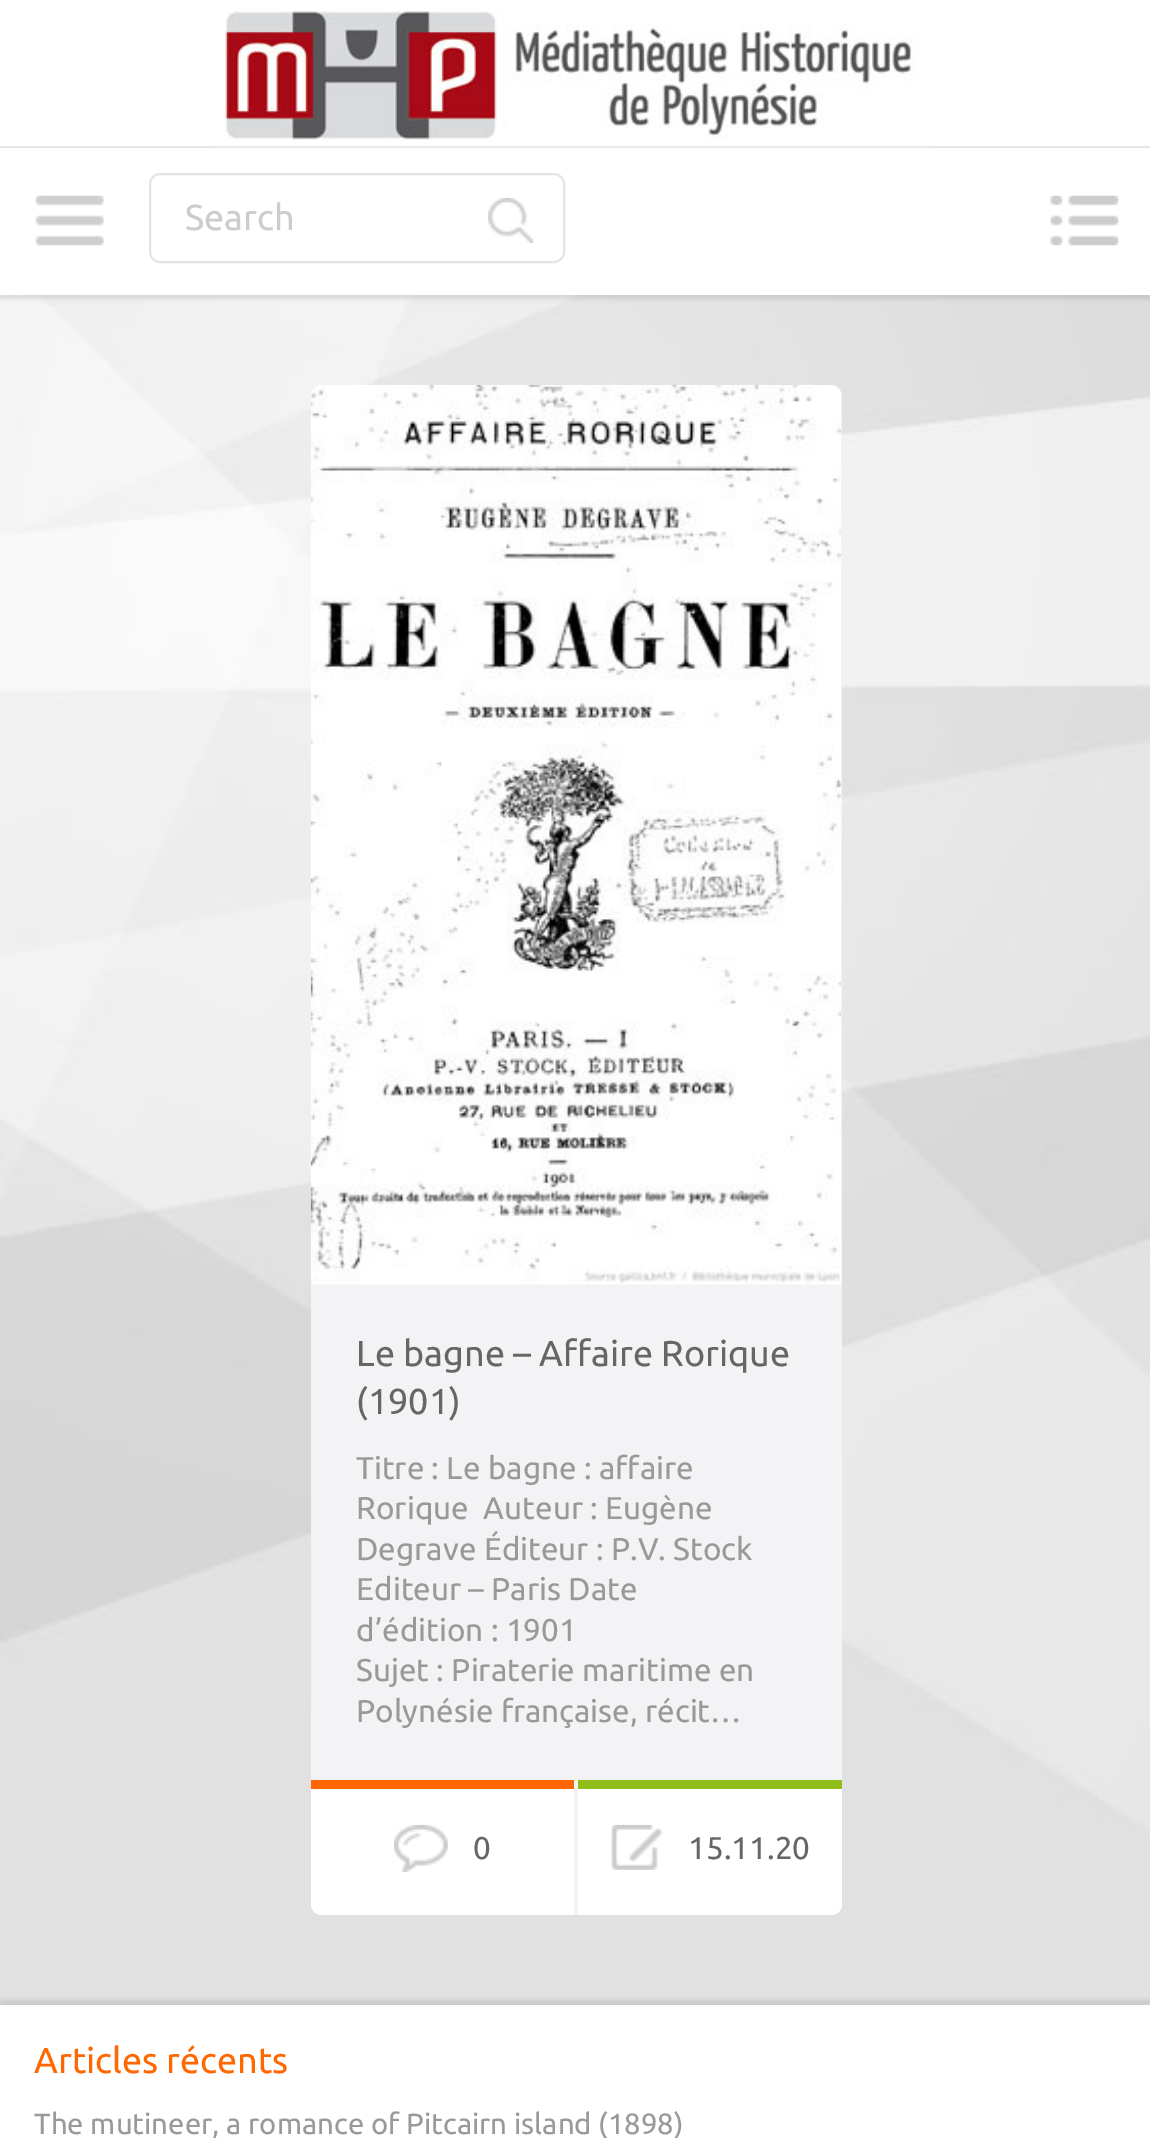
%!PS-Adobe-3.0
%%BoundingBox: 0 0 1150 2138
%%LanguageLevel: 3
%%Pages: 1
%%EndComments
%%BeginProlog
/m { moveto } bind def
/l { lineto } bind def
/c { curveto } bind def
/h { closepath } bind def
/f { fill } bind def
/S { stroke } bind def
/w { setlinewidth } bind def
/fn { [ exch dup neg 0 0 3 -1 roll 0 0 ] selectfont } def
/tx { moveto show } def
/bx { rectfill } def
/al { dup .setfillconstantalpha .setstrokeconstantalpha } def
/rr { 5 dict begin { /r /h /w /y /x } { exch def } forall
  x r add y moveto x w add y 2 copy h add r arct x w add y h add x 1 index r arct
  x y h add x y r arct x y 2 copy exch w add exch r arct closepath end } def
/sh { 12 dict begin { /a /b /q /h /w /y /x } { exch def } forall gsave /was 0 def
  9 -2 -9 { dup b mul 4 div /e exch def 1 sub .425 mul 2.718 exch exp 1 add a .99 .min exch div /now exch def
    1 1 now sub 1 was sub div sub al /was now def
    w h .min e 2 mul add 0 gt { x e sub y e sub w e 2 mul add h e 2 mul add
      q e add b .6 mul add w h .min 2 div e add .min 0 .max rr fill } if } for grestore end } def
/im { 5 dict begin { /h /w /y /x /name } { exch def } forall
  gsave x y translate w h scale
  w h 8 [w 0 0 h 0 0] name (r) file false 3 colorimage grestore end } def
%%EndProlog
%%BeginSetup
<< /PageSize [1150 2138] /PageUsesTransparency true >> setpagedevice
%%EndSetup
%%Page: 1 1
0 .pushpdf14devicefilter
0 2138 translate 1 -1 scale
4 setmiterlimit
1 setgray
0 0 1150 2138 bx
(image0.raw) 0 295 1150 1710 im
0 setgray
0 153 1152 146 0 2 0.1 sh
1 setgray
0 150 1150 145 bx
0.898 0.906 0.918 setrgbcolor
0 146 1150 2 bx
(image1.raw) 214 11 715 136 im
(image2.raw) 35 195 69 51 im
0.898 setgray
2 w
150 174 414 88 10 rr S
/Ubuntu-Regular 36 fn
0.8 setgray
(Search) 185 230 tx
(image3.raw) 488 198 46 45 im
(image4.raw) 1050 195 69 51 im
0.953 0.953 0.961 setrgbcolor
311 385 531 1530 11 rr f
(image5.raw) 310 385 531 900 im
0.4 setgray
(Le bagne – Affaire Rorique) 356 1366 tx
(\(1901\)) 356 1414 tx
/Ubuntu-Regular 31.5 fn
0.6 setgray
(Titre : Le bagne : affaire) 356 1479 tx
(Rorique  Auteur : Eugène) 356 1519 tx
(Degrave Éditeur : P.V. Stock) 356 1560 tx
(Editeur – Paris Date) 356 1600 tx
(d’édition : 1901) 356 1641 tx
(Sujet : Piraterie maritime en) 356 1681 tx
(Polynésie française, récit…) 356 1722 tx
1 setgray
311 1780 m 574 1780 l 574 1915 l 322 1915 l 316 1915 311 1910 311 1904 c h f
1 0.404 0 setrgbcolor
311 1780 263 9 bx
(image6.raw) 394 1824 54 48 im
0.4 setgray
(0) 473 1859 tx
1 setgray
578 1780 m 842 1780 l 842 1904 l 842 1910 837 1915 831 1915 c 578 1915 l h f
0.561 0.745 0.106 setrgbcolor
578 1780 264 9 bx
(image7.raw) 611 1824 51 46 im
0.4 setgray
(15.11.20) 688 1859 tx
0 setgray
0 2000 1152 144 0 2 0.1 sh
1 setgray
0 2005 1150 133 bx
/Ubuntu-Regular 36 fn
1 0.404 0 setrgbcolor
(Articles récents) 34 2073 tx
/Ubuntu-Regular 29.25 fn
0.6 setgray
(The mutineer, a romance of Pitcairn island \(1898\)) 34 2134 tx
.poppdf14devicefilter showpage
%%EOF
